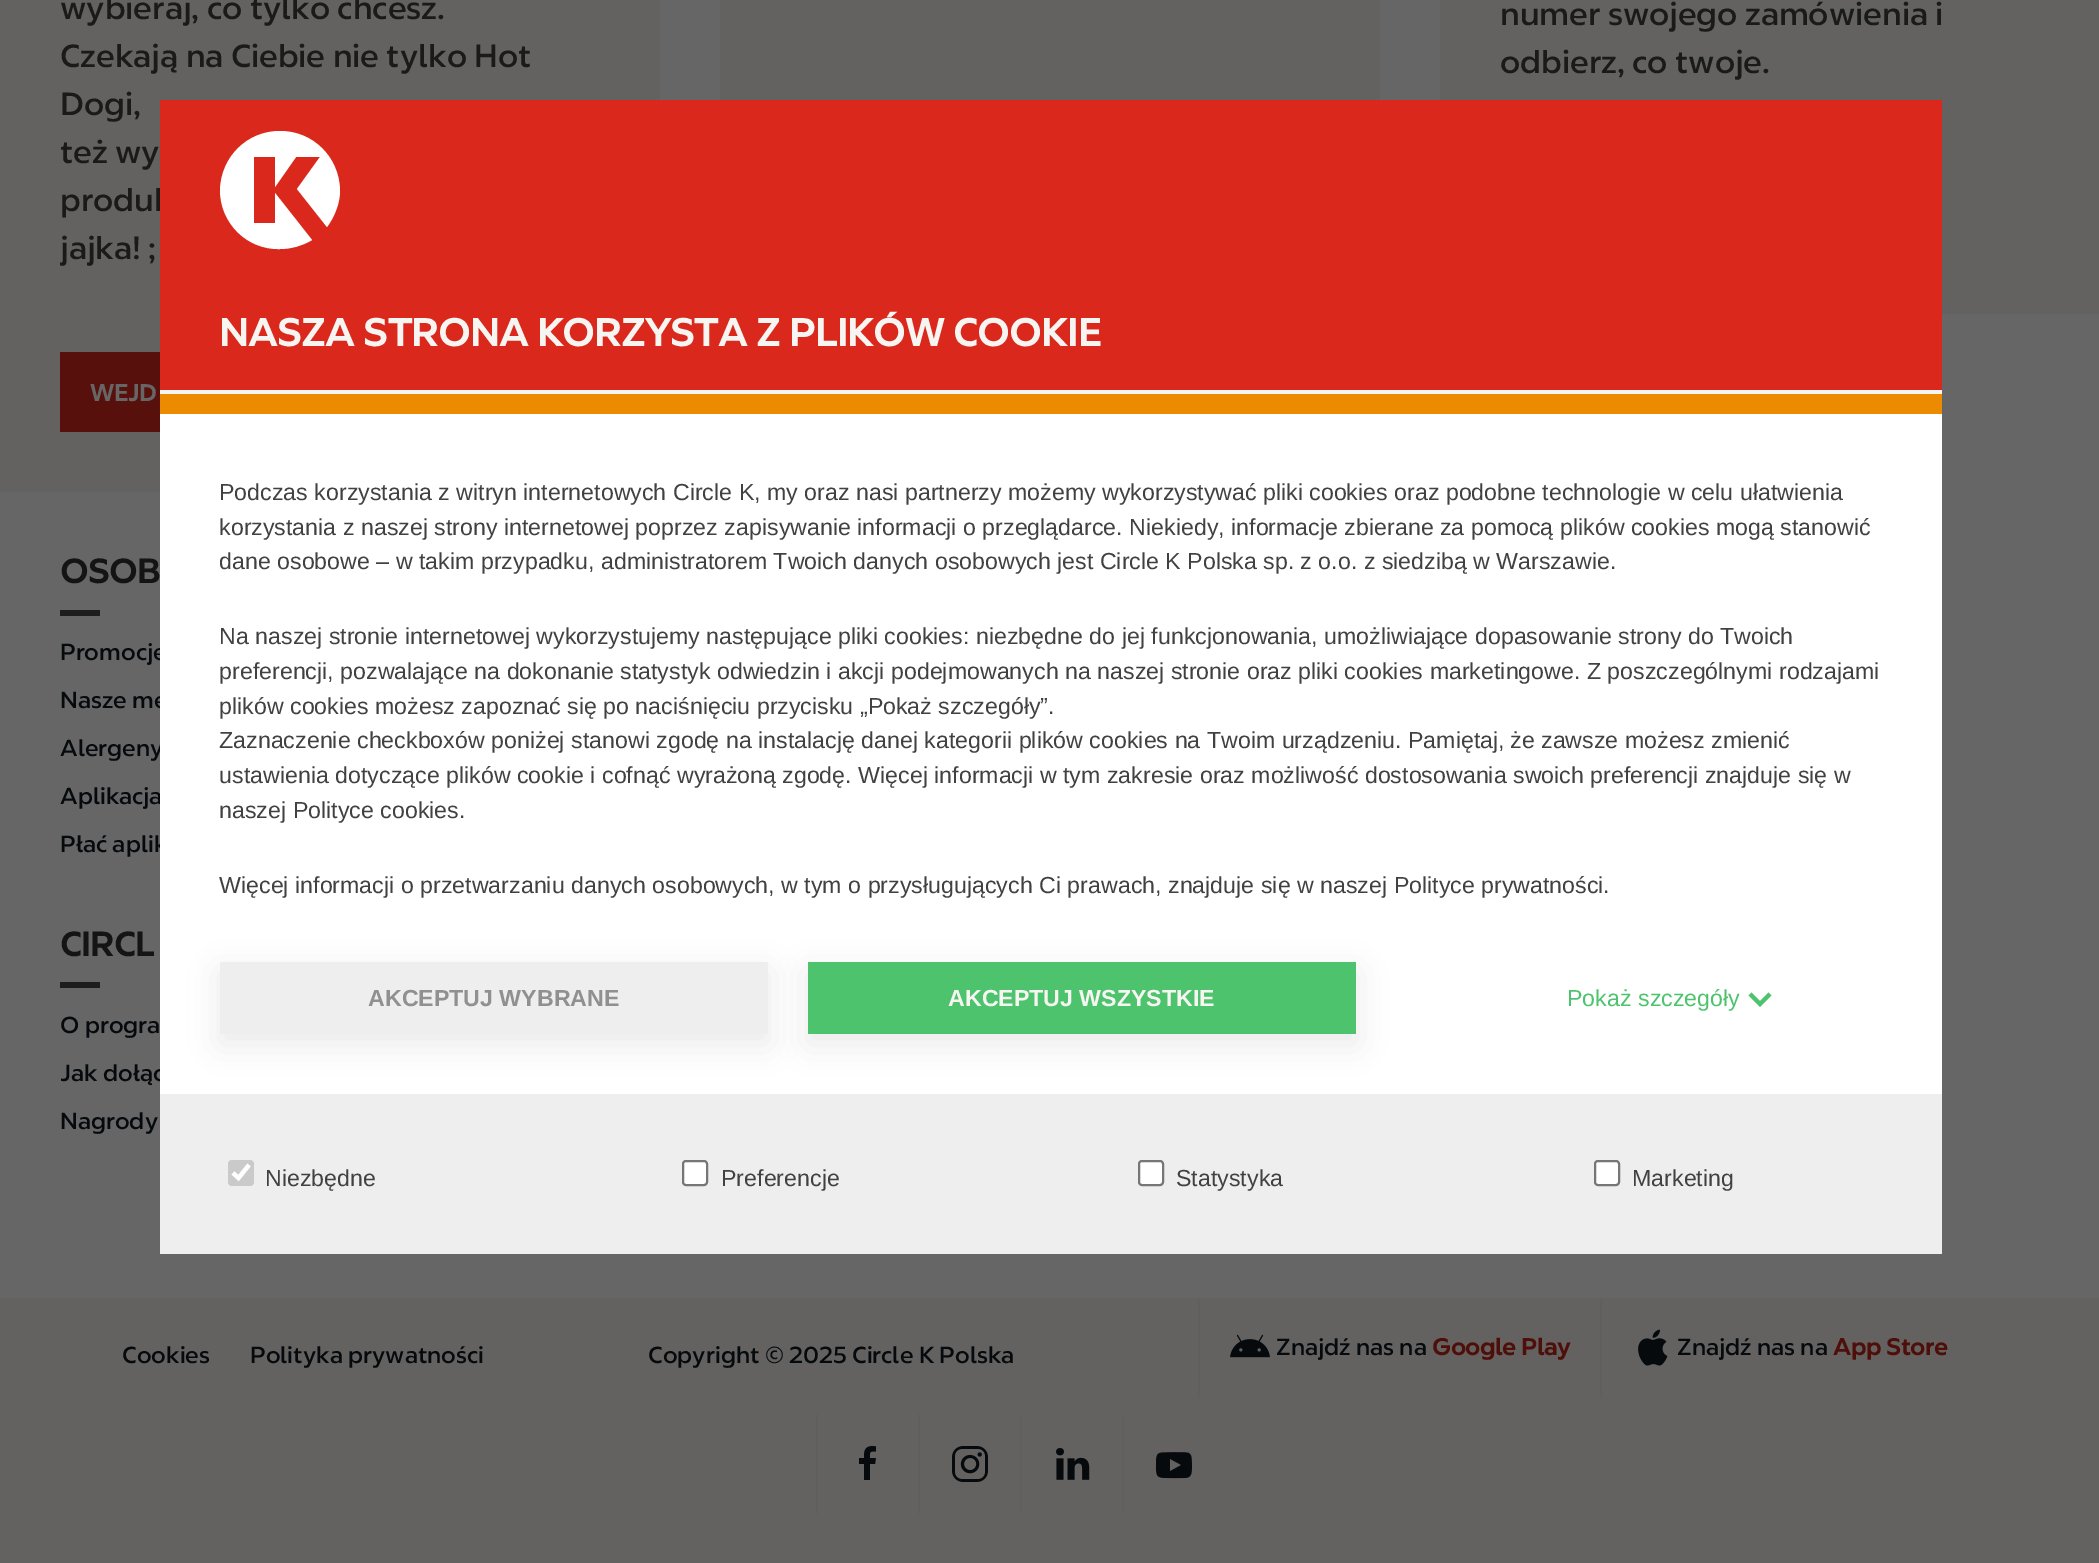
%!PS-Adobe-3.0
%%BoundingBox: 0 0 2099 1563
%%LanguageLevel: 3
%%Pages: 1
%%EndComments
%%BeginProlog
/m { moveto } bind def
/l { lineto } bind def
/c { curveto } bind def
/h { closepath } bind def
/f { fill } bind def
/S { stroke } bind def
/q { gsave } bind def
/Q { grestore } bind def
/w { setlinewidth } bind def
/fn { [ exch dup neg 0 0 3 -1 roll 0 0 ] selectfont } def
/tx { moveto show } def
/bx { rectfill } def
/al { dup .setfillconstantalpha .setstrokeconstantalpha } def
/rr { 5 dict begin { /r /h /w /y /x } { exch def } forall
  x r add y moveto x w add y 2 copy h add r arct x w add y h add x 1 index r arct
  x y h add x y r arct x y 2 copy exch w add exch r arct closepath end } def
/sh { 12 dict begin { /a /b /q /h /w /y /x } { exch def } forall gsave /was 0 def
  9 -2 -9 { dup b mul 4 div /e exch def 1 sub .425 mul 2.718 exch exp 1 add a .99 .min exch div /now exch def
    1 1 now sub 1 was sub div sub al /was now def
    w h .min e 2 mul add 0 gt { x e sub y e sub w e 2 mul add h e 2 mul add
      q e add b .6 mul add w h .min 2 div e add .min 0 .max rr fill } if } for grestore end } def
/im { 5 dict begin { /h /w /y /x /name } { exch def } forall
  gsave x y translate w h scale
  w h 8 [w 0 0 h 0 0] name (r) file false 3 colorimage grestore end } def
%%EndProlog
%%BeginSetup
<< /PageSize [2099 1563] /PageUsesTransparency true >> setpagedevice
%%EndSetup
%%Page: 1 1
0 .pushpdf14devicefilter
0 1563 translate 1 -1 scale
4 setmiterlimit
0.4 setgray
0 0 2099 1563 bx
0.388 0.384 0.38 setrgbcolor
0 0 660 492 bx
/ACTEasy-Medium 32 fn
0.102 setgray
(wybieraj, co tylko chcesz.) 60 19 tx
(Czekają na Ciebie nie tylko Hot) 60 67 tx
(Dogi,) 60 115 tx
(też wy) 60 163 tx
(produk) 60 211 tx
(jajka! ;) 60 259 tx
0.341 0.063 0.043 setrgbcolor
60 352 100 80 bx
/ACTEasy-Bold 23.2 fn
0.4 setgray
(WEJD) 90 401 tx
0.388 0.384 0.38 setrgbcolor
720 0 660 100 bx
1440 0 659 314 bx
/ACTEasy-Medium 32 fn
0.102 setgray
(numer swojego zamówienia i) 1500 25 tx
(odbierz, co twoje.) 1500 73 tx
/ACTEasy-Bold 33.5 fn
0.078 setgray
(OSOB) 60 583 tx
0.114 setgray
60 610 40 6 bx
/ACTEasy-Medium 23.2 fn
0.024 0.039 0.051 setrgbcolor
(Promocje) 60 660 tx
(Nasze me) 60 708 tx
(Alergeny) 60 756 tx
(Aplikacja) 60 804 tx
(Płać aplik) 60 852 tx
/ACTEasy-Bold 33.5 fn
0.078 setgray
(CIRCL) 60 956 tx
0.114 setgray
60 982 40 6 bx
/ACTEasy-Medium 23.2 fn
0.024 0.039 0.051 setrgbcolor
(O progra) 60 1033 tx
(Jak dołąc) 60 1081 tx
(Nagrody) 60 1129 tx
0.388 0.384 0.38 setrgbcolor
0 1298 2099 265 bx
0.024 0.039 0.051 setrgbcolor
(Cookies) 122 1363 tx
(Polityka prywatności) 250 1363 tx
(Copyright © 2025 Circle K Polska) 648 1363 tx
0.373 setgray
1198 1298 2 100 bx
(image0.raw) 1230 1334 40 24 im
0.024 0.039 0.051 setrgbcolor
(Znajdź nas na) 1276 1355 tx
/ACTEasy-Bold 23.2 fn
0.306 0.059 0.039 setrgbcolor
(Google Play) 1432 1355 tx
0.373 setgray
1600 1298 2 100 bx
(image1.raw) 1638 1329 30 37 im
/ACTEasy-Medium 23.2 fn
0.024 0.039 0.051 setrgbcolor
(Znajdź nas na) 1677 1355 tx
/ACTEasy-Bold 23.2 fn
0.306 0.059 0.039 setrgbcolor
(App Store) 1833 1355 tx
0.373 setgray
816 1414 2 100 bx
(image2.raw) 859 1446 17 34 im
918 1414 2 100 bx
(image3.raw) 952 1446 36 36 im
1020 1414 2 100 bx
(image4.raw) 1056 1448 34 32 im
1122 1414 2 100 bx
(image5.raw) 1156 1452 36 27 im
1 setgray
160 414 1782 680 bx
0.855 0.161 0.11 setrgbcolor
160 100 1782 290 bx
0.969 0.961 0.949 setrgbcolor
160 390 1782 4 bx
1 setgray
297 189 m 320 157 l 296 157 l 275 187 l 275 157 l 254 157 l 254 223 l 275 223 l 275 193 l 312 240 l 302 246 291 249 280 249 c 247 250 220 223 220 190 c 221 157 247 131 280 131 c 313 131 339 157 340 190 c 340 203 335 216 327 227 c h f
/ACTEasy-Bold 38.4 fn
0.969 0.961 0.949 setrgbcolor
(NASZA STRONA KORZYSTA Z PLIKÓW COOKIE) 219 346 tx
0.929 0.545 0 setrgbcolor
160 394 1782 20 bx
/LiberationSans-Regular 23.2 fn
0.255 setgray
(Podczas korzystania z witryn internetowych Circle K, my oraz nasi partnerzy możemy wykorzystywać pliki) 219 500 tx
(cookies oraz podobne technologie w celu ułatwienia) 1309 500 tx
(korzystania z naszej strony internetowej poprzez zapisywanie informacji o przeglądarce. Niekiedy,) 219 535 tx
(informacje zbierane za pomocą plików cookies mogą stanowić) 1231 535 tx
(dane osobowe – w takim przypadku, administratorem Twoich danych osobowych jest Circle K Polska) 219 569 tx
(sp. z o.o. z siedzibą w Warszawie.) 1263 569 tx
(Na naszej stronie internetowej wykorzystujemy następujące pliki cookies: niezbędne do jej funkcjonowania,) 219 644 tx
(umożliwiające dopasowanie strony do Twoich) 1324 644 tx
(preferencji, pozwalające na dokonanie statystyk odwiedzin i akcji podejmowanych na naszej stronie oraz) 219 679 tx
(pliki cookies marketingowe. Z poszczególnymi rodzajami) 1298 679 tx
(plików cookies możesz zapoznać się po naciśnięciu przycisku „Pokaż szczegóły”.) 219 714 tx
(Zaznaczenie checkboxów poniżej stanowi zgodę na instalację danej kategorii plików cookies na Twoim urządzeniu. Pamiętaj,) 219 748 tx
(że zawsze możesz zmienić) 1510 748 tx
(ustawienia dotyczące plików cookie i cofnąć wyrażoną) 219 783 tx
(zgodę. Więcej informacji w tym zakresie oraz możliwość dostosowania swoich) 782 783 tx
(preferencji znajduje się w) 1590 783 tx
(naszej Polityce cookies.) 219 818 tx
(Więcej informacji o przetwarzaniu danych osobowych, w tym o przysługujących Ci prawach, znajduje się w naszej Polityce) 219 893 tx
(prywatności.) 1481 893 tx
0 setgray
220 972 548 72 0 15 0.08 sh
0.933 setgray
220 962 548 72 bx
/LiberationSans-Bold 23.2 fn
0.565 setgray
(AKCEPTUJ WYBRANE) 368 1006 tx
0 setgray
808 972 548 72 0 15 0.08 sh
0.298 0.765 0.424 setrgbcolor
808 962 548 72 bx
0.969 0.961 0.949 setrgbcolor
(AKCEPTUJ WSZYSTKIE) 948 1006 tx
/LiberationSans-Regular 23.2 fn
0.298 0.765 0.424 setrgbcolor
(Pokaż szczegóły) 1567 1006 tx
4 w
1750 994 m 1760 1004 l 1770 994 l S
0.933 setgray
160 1094 1782 160 bx
0.792 setgray
228 1160 26 26 4 rr f
1 setgray
4.2 w
233 1173 m 238.5 1178 l 249 1165 l S
0.255 setgray
(Niezbędne) 265 1186 tx
1 setgray
683 1161 24 24 3 rr q f Q
0.463 setgray
2 w
S
0.255 setgray
(Preferencje) 721 1186 tx
1 setgray
1139 1161 24 24 3 rr q f Q
0.463 setgray
S
0.255 setgray
(Statystyka) 1176 1186 tx
1 setgray
1595 1161 24 24 3 rr q f Q
0.463 setgray
S
0.255 setgray
(Marketing) 1632 1186 tx
.poppdf14devicefilter showpage
%%EOF
